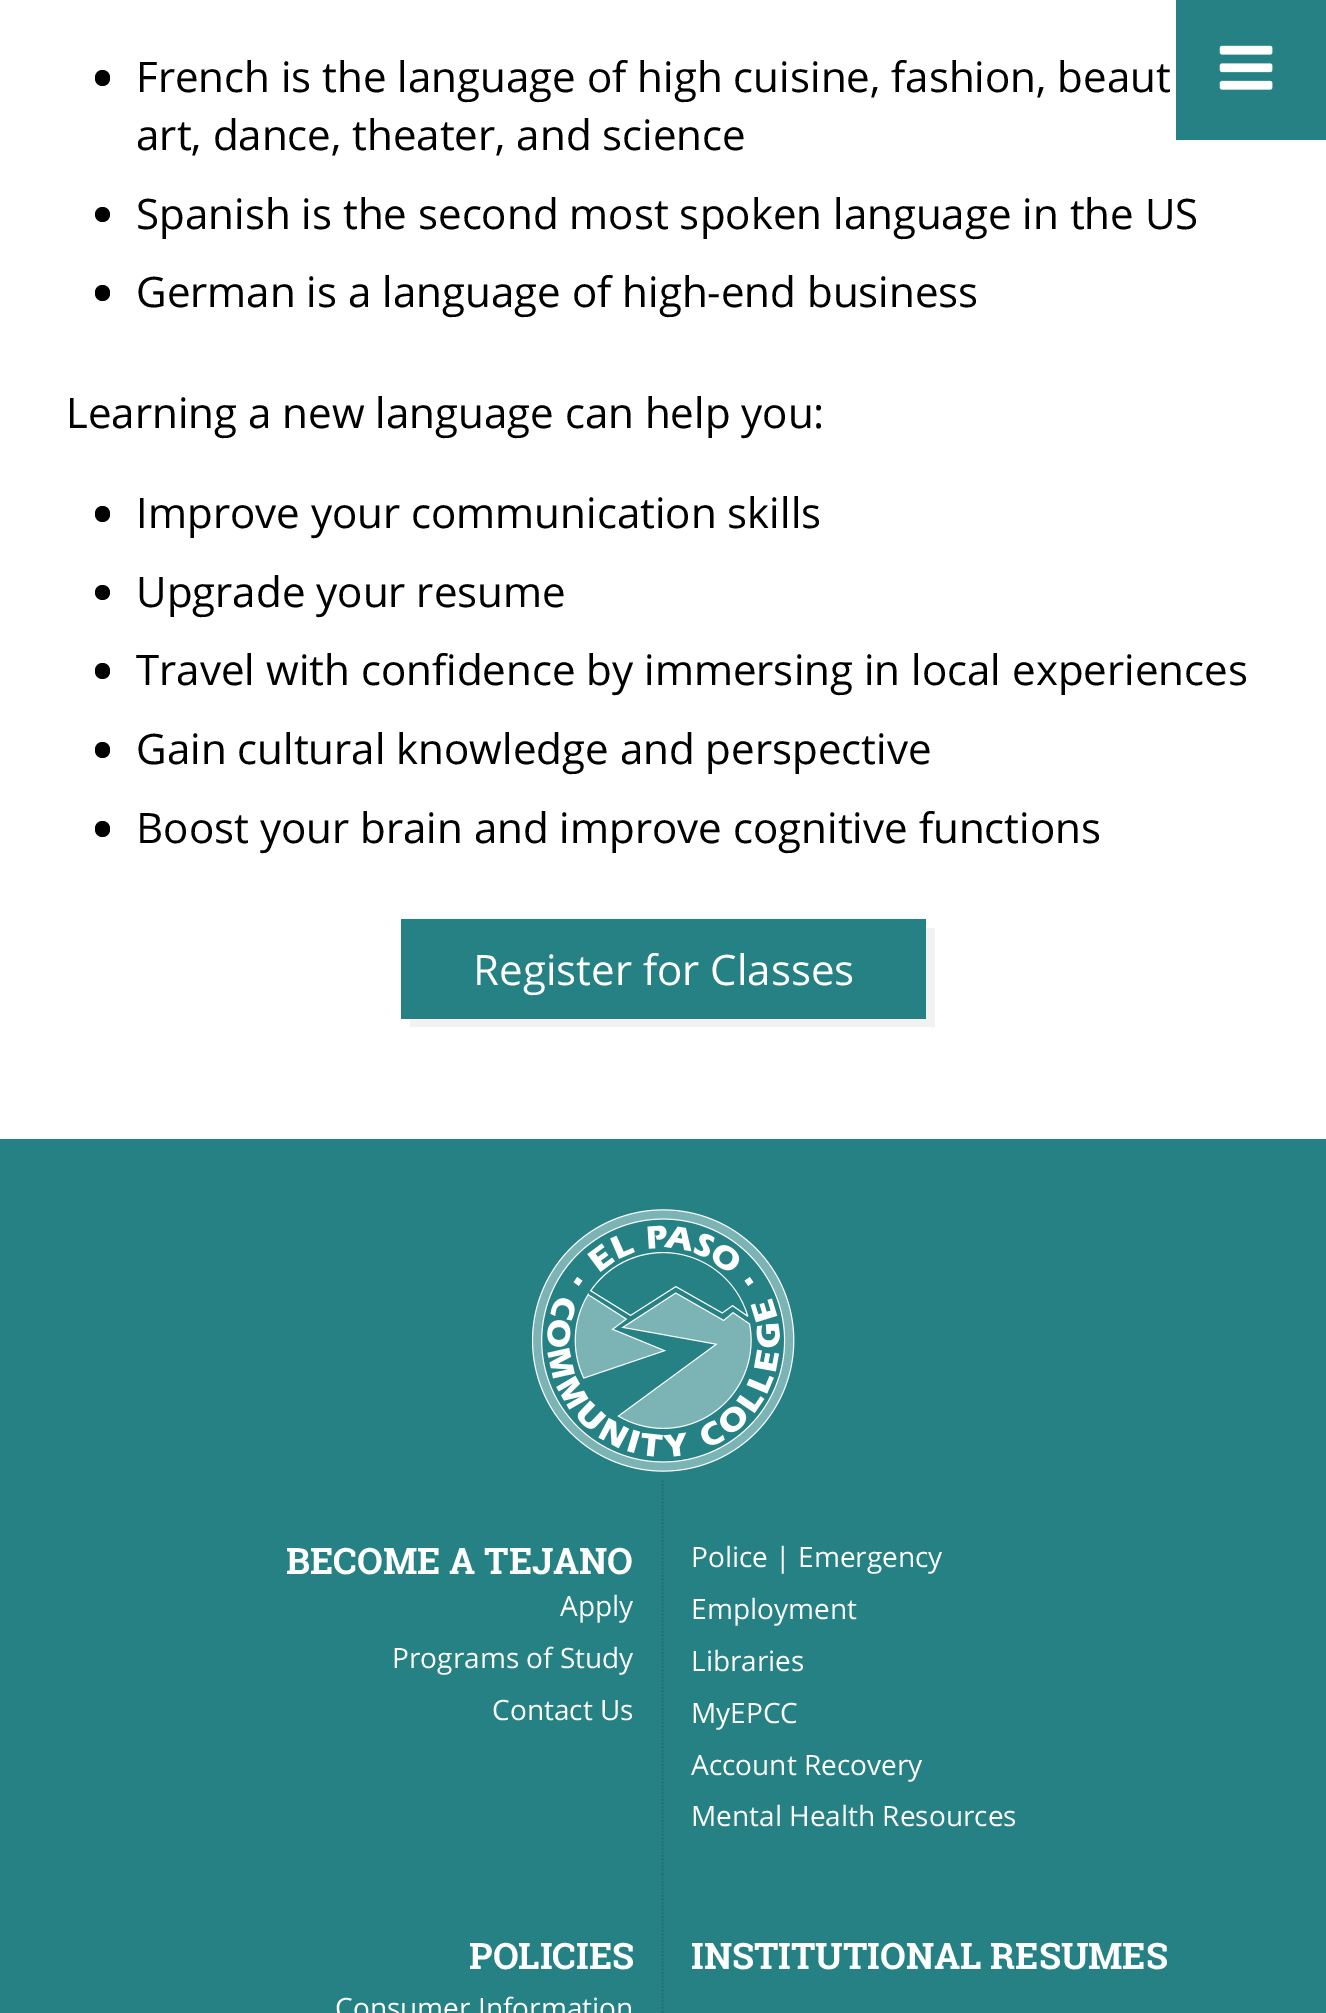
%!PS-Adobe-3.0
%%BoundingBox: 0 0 1326 2013
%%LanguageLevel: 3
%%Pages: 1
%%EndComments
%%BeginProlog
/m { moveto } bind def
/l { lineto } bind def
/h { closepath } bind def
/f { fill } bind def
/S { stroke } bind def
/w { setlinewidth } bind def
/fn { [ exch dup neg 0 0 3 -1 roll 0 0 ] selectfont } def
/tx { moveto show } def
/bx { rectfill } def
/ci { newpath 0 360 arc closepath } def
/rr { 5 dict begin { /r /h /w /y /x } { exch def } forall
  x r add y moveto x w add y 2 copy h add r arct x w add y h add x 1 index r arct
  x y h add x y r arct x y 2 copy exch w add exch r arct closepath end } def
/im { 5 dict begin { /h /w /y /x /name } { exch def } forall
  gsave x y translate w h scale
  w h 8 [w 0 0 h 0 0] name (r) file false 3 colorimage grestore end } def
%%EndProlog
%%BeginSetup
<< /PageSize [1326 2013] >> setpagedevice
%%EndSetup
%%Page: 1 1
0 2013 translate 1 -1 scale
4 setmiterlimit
1 setgray
0 0 1326 2013 bx
0 setgray
95 70 15 16 7.5 rr f
/OpenSans-Regular 42 fn
(French is the language of high cuisine, fashion, beaut) 136 92 tx
(art, dance, theater, and science) 136 150 tx
102.5 214.5 7.5 ci f
(Spanish is the second most spoken language in the US) 136 229 tx
95 285 15 16 7.5 rr f
(German is a language of high-end business) 136 307 tx
(Learning a new language can help you:) 66 428 tx
95 506 15 16 7.5 rr f
(Improve your communication skills) 136 528 tx
102.5 592.5 7.5 ci f
(Upgrade your resume) 136 607 tx
95 663 15 16 7.5 rr f
(Travel with confidence by immersing in local experiences) 136 685 tx
95 742 15 16 7.5 rr f
(Gain cultural knowledge and perspective) 136 764 tx
95 821 15 16 7.5 rr f
(Boost your brain and improve cognitive functions) 136 843 tx
0.949 setgray
410 1018 m 410 1027 l 935 1027 l 935 928 l 926 928 l 926 1018 l h f
0.145 0.506 0.518 setrgbcolor
401 919 525 100 bx
1 setgray
(Register for Classes) 473 985 tx
0.145 0.506 0.518 setrgbcolor
0 1139 1326 874 bx
(image0.raw) 532 1209 263 263 im
0.118 0.439 0.443 setrgbcolor
1.8 w
[1.75 1.75] 0 setdash
662.5 1480.5 m 662.5 1874 l S
/RobotoSlab-Bold 36.4 fn
1 setgray
(BECOME A TEJANO) 286 1574 tx
/OpenSans-Regular 28 fn
(Apply) 560 1616 tx
(Programs of Study) 392 1668 tx
(Contact Us) 492 1720 tx
(Police | Emergency) 691 1567 tx
(Employment) 691 1619 tx
(Libraries) 691 1671 tx
(MyEPCC) 691 1723 tx
(Account Recovery) 691 1775 tx
(Mental Health Resources) 691 1826 tx
0.118 0.439 0.443 setrgbcolor
662.5 1874 m 662.5 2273 l S
/RobotoSlab-Bold 36.4 fn
1 setgray
(POLICIES) 469 1969 tx
/OpenSans-Regular 28 fn
(Consumer Information) 335 2018 tx
/RobotoSlab-Bold 36.4 fn
(INSTITUTIONAL RESUMES) 691 1969 tx
0.145 0.506 0.518 setrgbcolor
1176 0 150 140 bx
(image1.raw) 1219 45 54 45 im
showpage
%%EOF
